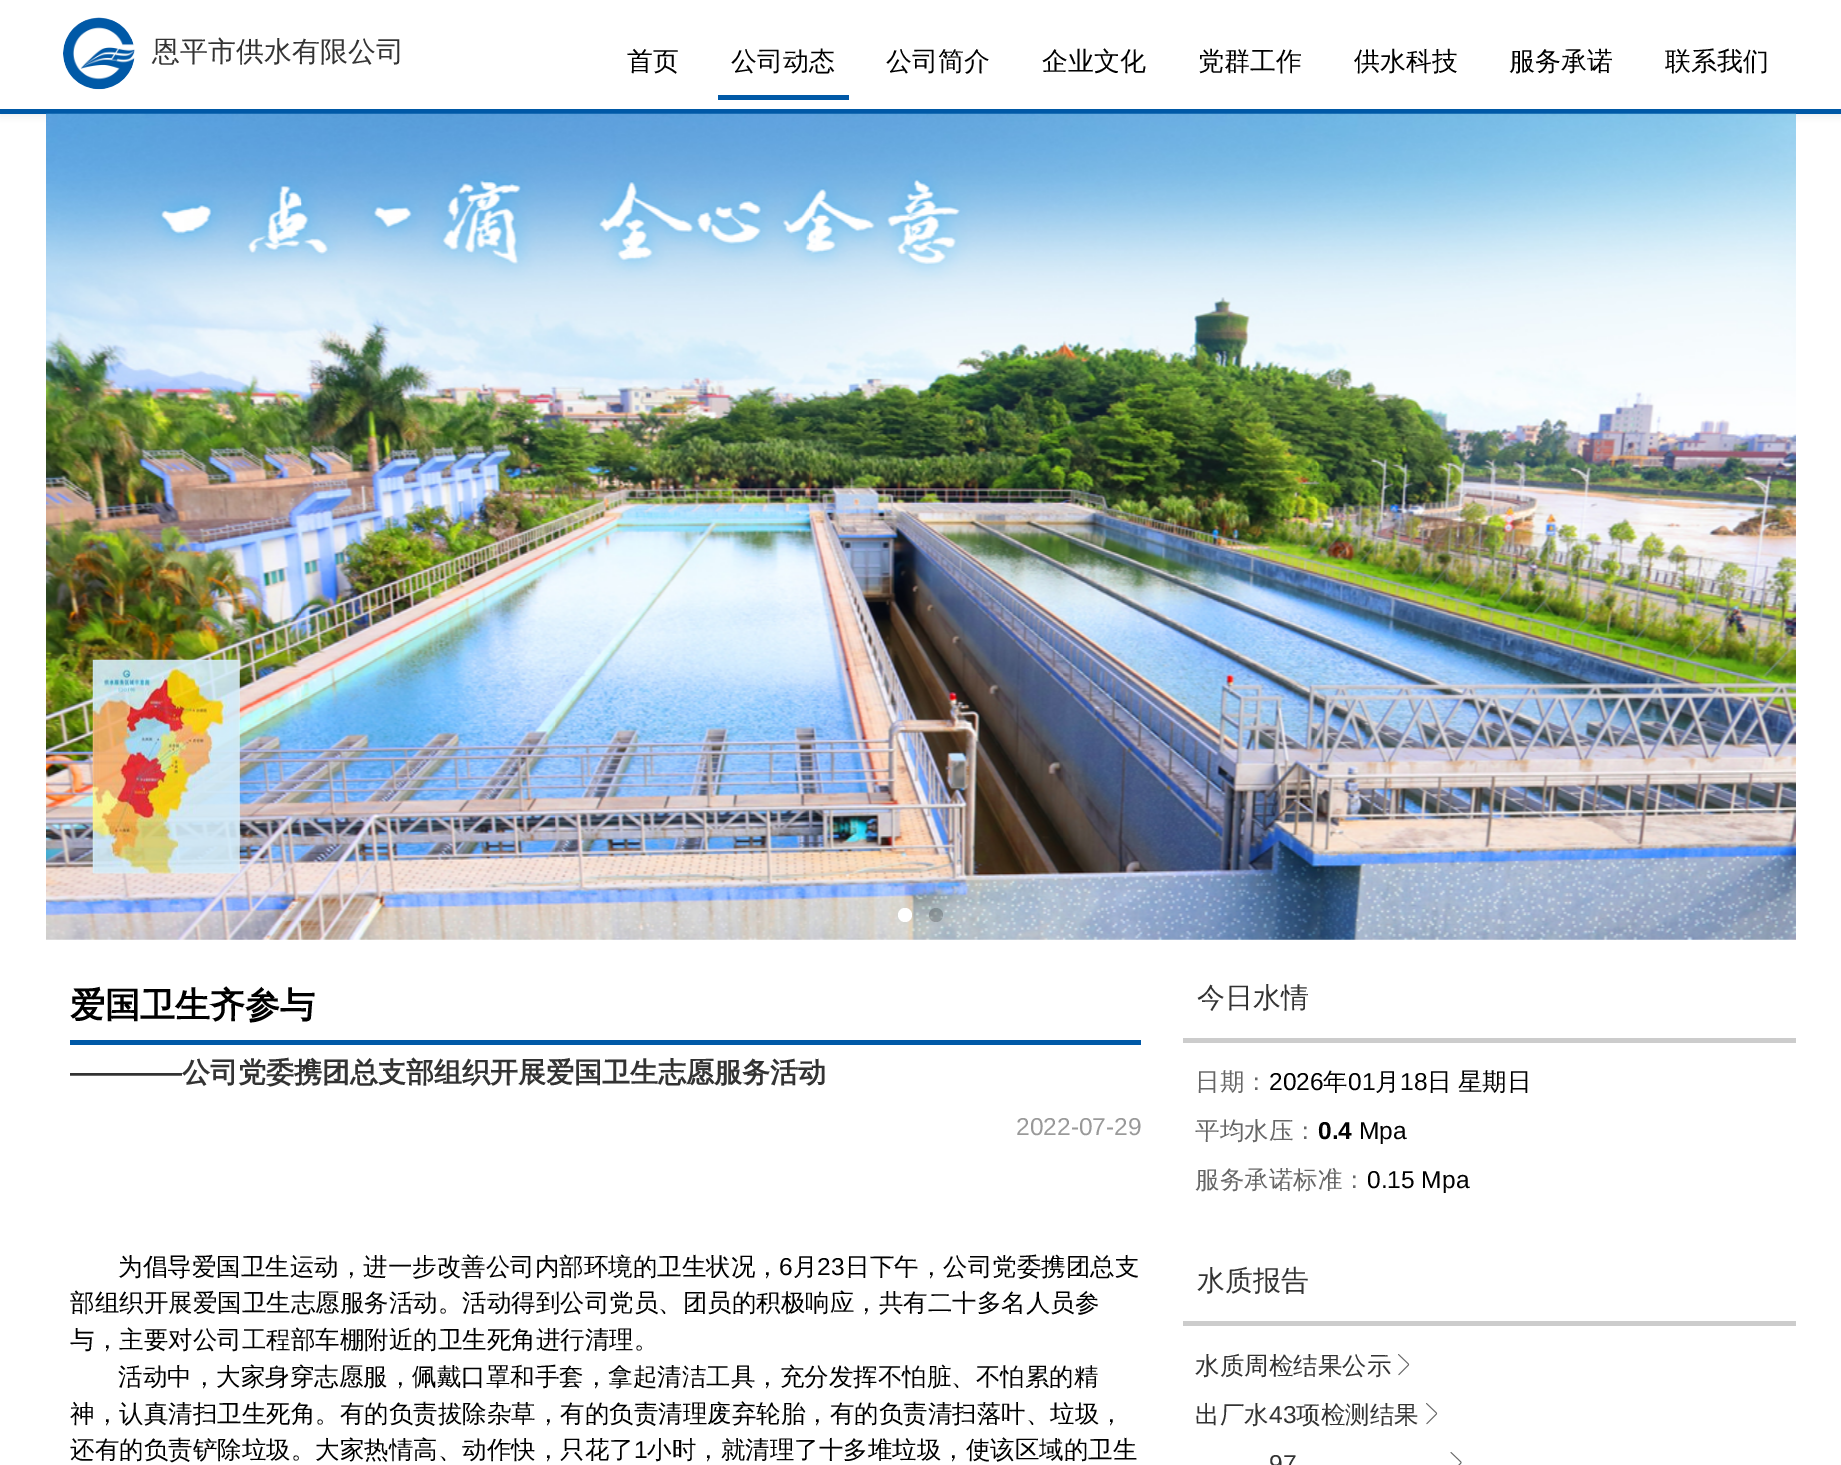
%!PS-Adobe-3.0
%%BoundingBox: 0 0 1841 1465
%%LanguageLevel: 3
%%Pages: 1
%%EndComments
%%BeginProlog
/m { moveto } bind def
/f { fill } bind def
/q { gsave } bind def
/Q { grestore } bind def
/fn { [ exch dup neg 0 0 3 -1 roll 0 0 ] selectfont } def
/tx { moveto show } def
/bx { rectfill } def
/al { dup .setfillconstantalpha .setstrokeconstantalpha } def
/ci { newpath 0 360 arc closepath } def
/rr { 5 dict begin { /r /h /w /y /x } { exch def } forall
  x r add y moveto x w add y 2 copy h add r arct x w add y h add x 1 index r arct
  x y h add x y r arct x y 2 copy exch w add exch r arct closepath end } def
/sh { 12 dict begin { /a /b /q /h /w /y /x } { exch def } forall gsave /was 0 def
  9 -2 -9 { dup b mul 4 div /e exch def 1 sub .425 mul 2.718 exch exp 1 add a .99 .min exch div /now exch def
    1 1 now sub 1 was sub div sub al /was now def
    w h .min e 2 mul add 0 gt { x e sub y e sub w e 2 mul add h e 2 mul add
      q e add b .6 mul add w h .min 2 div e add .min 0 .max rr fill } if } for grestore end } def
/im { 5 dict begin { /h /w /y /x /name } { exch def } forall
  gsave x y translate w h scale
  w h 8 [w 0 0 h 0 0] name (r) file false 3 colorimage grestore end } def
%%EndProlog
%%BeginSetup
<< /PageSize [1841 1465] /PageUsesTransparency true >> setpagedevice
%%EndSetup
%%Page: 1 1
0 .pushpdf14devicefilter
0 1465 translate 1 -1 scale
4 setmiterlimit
1 setgray
0 0 1841 1465 bx
q
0 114 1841 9 rectclip
0.933 setgray
0 2 1841 114 0 3.5 1 sh
Q
0 0.349 0.655 setrgbcolor
0 109 1841 5 bx
(image0.raw) 63 17 72 73 im
/WenQuanYiZenHei-Medium 28 fn
0.2 setgray
(恩平市供水有限公司) 152 61 tx
/WenQuanYiZenHei-Medium 26 fn
0 setgray
(首页) 627 70 tx
0 0.349 0.655 setrgbcolor
718 95 131 5 bx
0 setgray
(公司动态) 731 70 tx
(公司简介) 886 70 tx
(企业文化) 1042 70 tx
(党群工作) 1198 70 tx
(供水科技) 1354 70 tx
(服务承诺) 1509 70 tx
(联系我们) 1665 70 tx
(image2.raw) 46 113 1750 827 im
(image1.raw) 92 659 148 215 im
1 setgray
905 915 7 ci f
0.2 al
0 setgray
936 915 7 ci f
1 al
0 0.349 0.655 setrgbcolor
70 1040 1071 5 bx
/WenQuanYiZenHei-Bold 35 fn
0 setgray
(爱国卫生齐参与) 70 1017 tx
/LiberationSans-Bold 28 fn
0.2 setgray
(————) 70 1082 tx
/WenQuanYiZenHei-Bold 28 fn
(公司党委携团总支部组织开展爱国卫生志愿服务活动) 182 1082 tx
/LiberationSans-Regular 24.5 fn
0.6 setgray
(2022-07-29) 1016 1135 tx
/WenQuanYiZenHei-Medium 24.5 fn
0 setgray
(为倡导爱国卫生运动，进一步改善公司内部环境的卫生状况，) 118 1275 tx
/LiberationSans-Regular 24.5 fn
(6) 779 1275 tx
/WenQuanYiZenHei-Medium 24.5 fn
(月) 793 1275 tx
/LiberationSans-Regular 24.5 fn
(23) 817 1275 tx
/WenQuanYiZenHei-Medium 24.5 fn
(日下午，公司党委携团总支) 845 1275 tx
(部组织开展爱国卫生志愿服务活动。活动得到公司党员、团员的积极响应，共有二十多名人员参) 70 1311 tx
(与，主要对公司工程部车棚附近的卫生死角进行清理。) 70 1348 tx
(活动中，大家身穿志愿服，佩戴口罩和手套，拿起清洁工具，充分发挥不怕脏、不怕累的精) 118 1385 tx
(神，认真清扫卫生死角。有的负责拔除杂草，有的负责清理废弃轮胎，有的负责清扫落叶、垃圾，) 70 1422 tx
(还有的负责铲除垃圾。大家热情高、动作快，只花了) 70 1458 tx
/LiberationSans-Regular 24.5 fn
(1) 634 1458 tx
/WenQuanYiZenHei-Medium 24.5 fn
(小时，就清理了十多堆垃圾，使该区域的卫生) 647 1458 tx
0.8 setgray
1183 1038 613 5 bx
/WenQuanYiZenHei-Medium 28 fn
0.2 setgray
(今日水情) 1197 1007 tx
/WenQuanYiZenHei-Medium 24.5 fn
0.4 setgray
(日期：) 1195 1090 tx
/LiberationSans-Regular 24.5 fn
0 setgray
(2026) 1269 1090 tx
/WenQuanYiZenHei-Medium 24.5 fn
(年) 1323 1090 tx
/LiberationSans-Regular 24.5 fn
(01) 1348 1090 tx
/WenQuanYiZenHei-Medium 24.5 fn
(月) 1375 1090 tx
/LiberationSans-Regular 24.5 fn
(18) 1400 1090 tx
/WenQuanYiZenHei-Medium 24.5 fn
1427 1090 m -1 0 32 (日 星期日) widthshow
0.4 setgray
(平均水压：) 1195 1139 tx
/LiberationSans-Bold 24.5 fn
0 setgray
(0.4) 1318 1139 tx
/LiberationSans-Regular 24.5 fn
(Mpa) 1359 1139 tx
/WenQuanYiZenHei-Medium 24.5 fn
0.4 setgray
(服务承诺标准：) 1195 1188 tx
/LiberationSans-Regular 24.5 fn
0 setgray
(0.15 Mpa) 1367 1188 tx
0.8 setgray
1183 1321 613 5 bx
/WenQuanYiZenHei-Medium 28 fn
0.2 setgray
(水质报告) 1197 1290 tx
/WenQuanYiZenHei-Medium 24.5 fn
(水质周检结果公示) 1195 1374 tx
(image3.raw) 1398 1354 12 22 im
(出厂水) 1195 1423 tx
/LiberationSans-Regular 24.5 fn
(43) 1269 1423 tx
/WenQuanYiZenHei-Medium 24.5 fn
(项检测结果) 1296 1423 tx
(image3.raw) 1426 1403 12 22 im
/LiberationSans-Regular 24.5 fn
(97) 1269 1472 tx
(image4.raw) 1450 1452 12 13 im
.poppdf14devicefilter showpage
%%EOF
